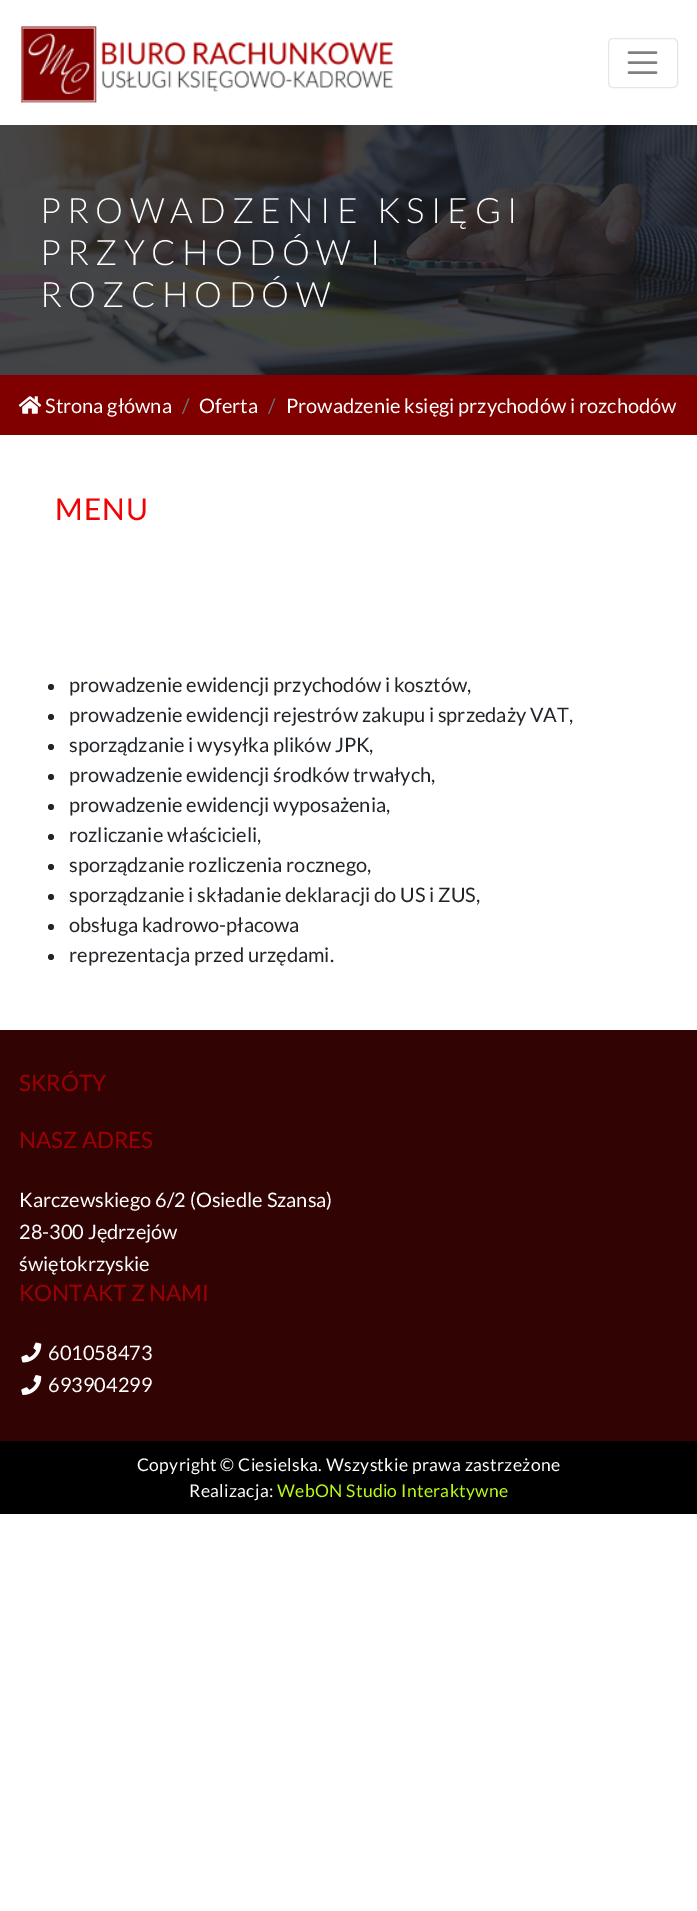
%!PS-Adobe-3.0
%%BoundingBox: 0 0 697 1911
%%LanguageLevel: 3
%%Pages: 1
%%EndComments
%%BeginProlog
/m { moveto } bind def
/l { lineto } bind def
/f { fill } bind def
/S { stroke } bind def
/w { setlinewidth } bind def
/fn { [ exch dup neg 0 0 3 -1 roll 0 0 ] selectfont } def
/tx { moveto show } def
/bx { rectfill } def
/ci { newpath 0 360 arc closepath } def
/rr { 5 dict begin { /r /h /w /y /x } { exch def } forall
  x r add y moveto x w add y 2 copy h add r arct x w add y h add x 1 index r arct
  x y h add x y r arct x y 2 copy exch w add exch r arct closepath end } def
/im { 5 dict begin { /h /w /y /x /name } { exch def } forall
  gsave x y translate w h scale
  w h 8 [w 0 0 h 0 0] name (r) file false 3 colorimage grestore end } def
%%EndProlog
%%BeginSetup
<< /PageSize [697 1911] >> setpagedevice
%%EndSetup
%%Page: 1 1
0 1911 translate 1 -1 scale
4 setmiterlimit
1 setgray
0 0 697 1911 bx
(image0.raw) 21 26 372 77 im
0.902 setgray
608.5 38.5 69 49 4.5 rr S
0.502 setgray
2.5 w
1 setlinecap
629 52.5 m 656 52.5 l 629 62.5 m 656 62.5 l 629 72.5 m 656 72.5 l S
(image1.raw) 0 125 697 250 im
/Lato-Light 35 fn
1 setgray
40 223 m 6.25 0 (PROWADZENIE KSIĘGI) ashow
40 265 m 6.25 0 (PRZYCHODÓW I) ashow
40 307 m 6.25 0 (ROZCHODÓW) ashow
0.502 0 0 setrgbcolor
0 375 697 60 bx
(image2.raw) 18 396 24 18 im
/Lato-Regular 20 fn
1 setgray
(Strona główna) 45 413 tx
0.424 0.459 0.49 setrgbcolor
(/) 182 413 tx
1 setgray
(Oferta) 199 413 tx
0.424 0.459 0.49 setrgbcolor
(/) 268 413 tx
1 setgray
(Prowadzenie księgi przychodów i rozchodów) 286 413 tx
/Lato-Regular 30 fn
0.929 0.02 0.02 setrgbcolor
55 520 m 1 0 (MENU) ashow
0.129 0.145 0.161 setrgbcolor
51 687 3 ci f
/Lato-Regular 20 fn
(prowadzenie ewidencji przychodów i kosztów,) 69 692 tx
51 717 3 ci f
(prowadzenie ewidencji rejestrów zakupu i sprzedaży VAT,) 69 722 tx
51 747 3 ci f
(sporządzanie i wysyłka plików JPK,) 69 752 tx
51 777 3 ci f
(prowadzenie ewidencji środków trwałych,) 69 782 tx
51 807 3 ci f
(prowadzenie ewidencji wyposażenia,) 69 812 tx
51 837 3 ci f
(rozliczanie właścicieli,) 69 842 tx
51 867 3 ci f
(sporządzanie rozliczenia rocznego,) 69 872 tx
51 897 3 ci f
(sporządzanie i składanie deklaracji do US i ZUS,) 69 902 tx
51 927 3 ci f
(obsługa kadrowo-płacowa) 69 932 tx
51 957 3 ci f
(reprezentacja przed urzędami.) 69 962 tx
0.196 0.012 0.012 setrgbcolor
0 1030 697 411 bx
/Lato-Regular 22.5 fn
0.604 0.004 0.02 setrgbcolor
(SKRÓTY) 19 1091 tx
(NASZ ADRES) 19 1148 tx
/Lato-Regular 20 fn
1 setgray
(Karczewskiego 6/2 \(Osiedle Szansa\)) 19 1207 tx
(28-300 Jędrzejów) 19 1239 tx
(świętokrzyskie) 19 1271 tx
/Lato-Regular 22.5 fn
0.604 0.004 0.02 setrgbcolor
(KONTAKT Z NAMI) 19 1301 tx
(image3.raw) 21 1342 21 21 im
/Lato-Regular 20 fn
1 setgray
(601058473) 48 1360 tx
(image4.raw) 21 1375 21 20 im
(693904299) 48 1392 tx
0 setgray
0 1441 697 73 bx
/Lato-Regular 17.5 fn
1 setgray
137 1471 m 0.3 0 (Copyright © Ciesielska. Wszystkie prawa zastrzeżone) ashow
189 1497 m 0.3 0 (Realizacja:) ashow
0.722 0.98 0.102 setrgbcolor
277 1497 m 0.3 0 (WebON Studio Interaktywne) ashow
showpage
%%EOF
